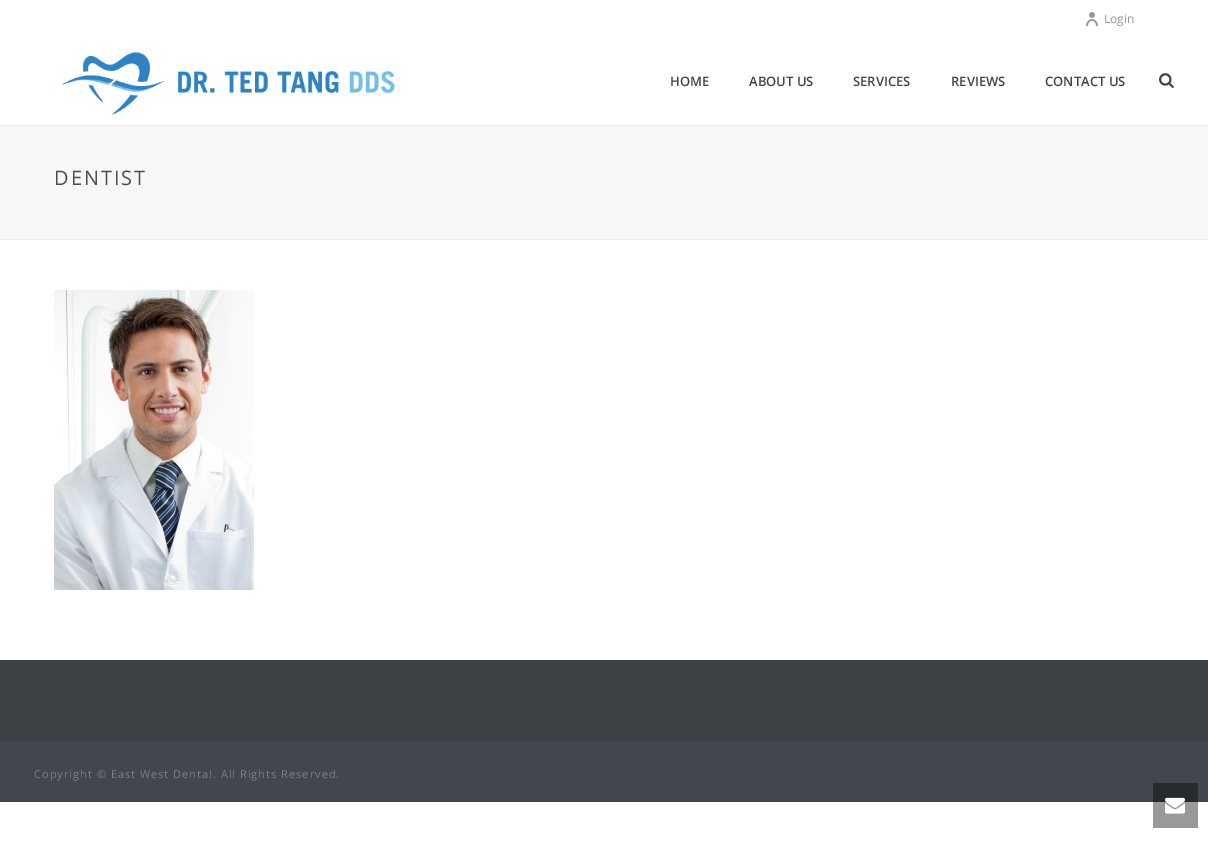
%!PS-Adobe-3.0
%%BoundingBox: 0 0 1208 843
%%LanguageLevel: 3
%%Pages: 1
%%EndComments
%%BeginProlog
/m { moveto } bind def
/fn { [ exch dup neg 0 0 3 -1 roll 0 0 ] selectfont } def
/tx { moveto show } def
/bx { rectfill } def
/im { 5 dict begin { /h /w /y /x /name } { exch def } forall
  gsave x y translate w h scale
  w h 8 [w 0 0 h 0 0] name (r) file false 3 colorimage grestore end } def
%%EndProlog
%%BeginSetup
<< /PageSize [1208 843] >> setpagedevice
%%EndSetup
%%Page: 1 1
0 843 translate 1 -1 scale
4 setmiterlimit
1 setgray
0 0 1208 843 bx
0.6 setgray
1153 802 45 26 bx
0.969 setgray
0 126 1208 113 bx
0.929 setgray
0 239 1208 1 bx
(image0.raw) 1086 12 12 14 im
/OpenSans-Regular 12 fn
0.6 setgray
(Login) 1104 23 tx
0.929 setgray
0 125 1208 1 bx
(image1.raw) 62 52 333 63 im
/OpenSans-SemiBold 13 fn
0.267 setgray
(HOME) 670 86 tx
(ABOUT US) 749 86 tx
(SERVICES) 853 86 tx
(REVIEWS) 951 86 tx
(CONTACT US) 1045 86 tx
(image2.raw) 1159 73 15 15 im
/OpenSans-Regular 20 fn
0.302 setgray
54 185 m 2 0 (DENTIST) ashow
(image3.raw) 54 290 200 300 im
0.239 0.251 0.271 setrgbcolor
0 660 1208 81 bx
0.263 0.278 0.302 setrgbcolor
0 741 1208 61 bx
0.157 0.169 0.18 setrgbcolor
1153 783 45 19 bx
/OpenSans-Regular 11 fn
0.49 0.502 0.514 setrgbcolor
34 778 m 1 0 (Copyright © East West Dental. All Rights Reserved.) ashow
(image4.raw) 1165 797 20 17 im
showpage
%%EOF
